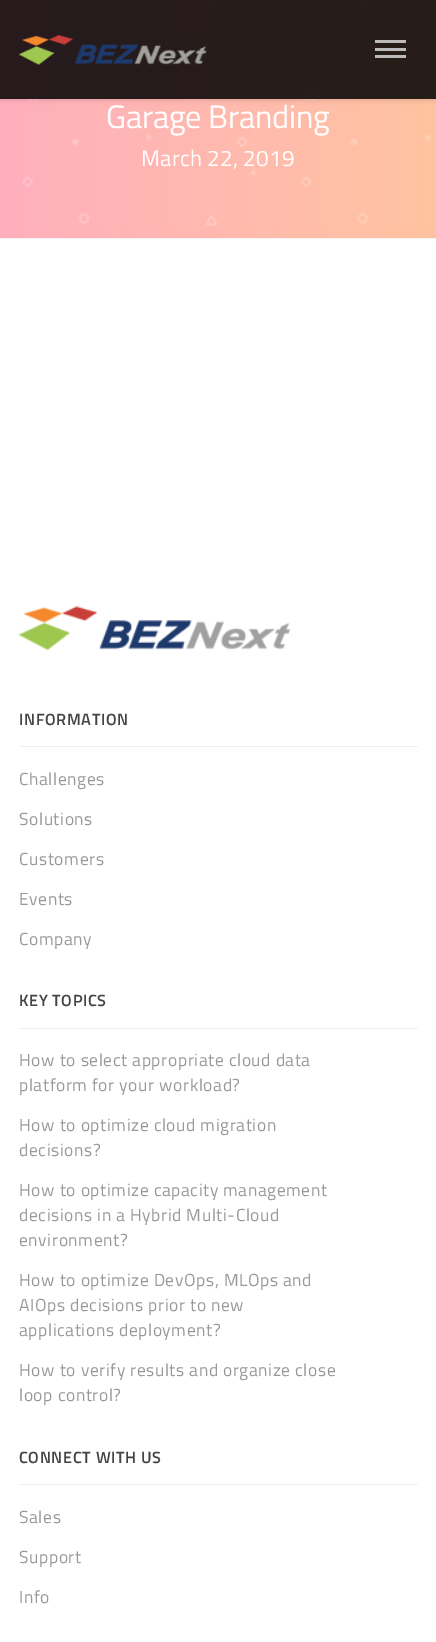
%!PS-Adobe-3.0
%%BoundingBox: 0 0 436 1642
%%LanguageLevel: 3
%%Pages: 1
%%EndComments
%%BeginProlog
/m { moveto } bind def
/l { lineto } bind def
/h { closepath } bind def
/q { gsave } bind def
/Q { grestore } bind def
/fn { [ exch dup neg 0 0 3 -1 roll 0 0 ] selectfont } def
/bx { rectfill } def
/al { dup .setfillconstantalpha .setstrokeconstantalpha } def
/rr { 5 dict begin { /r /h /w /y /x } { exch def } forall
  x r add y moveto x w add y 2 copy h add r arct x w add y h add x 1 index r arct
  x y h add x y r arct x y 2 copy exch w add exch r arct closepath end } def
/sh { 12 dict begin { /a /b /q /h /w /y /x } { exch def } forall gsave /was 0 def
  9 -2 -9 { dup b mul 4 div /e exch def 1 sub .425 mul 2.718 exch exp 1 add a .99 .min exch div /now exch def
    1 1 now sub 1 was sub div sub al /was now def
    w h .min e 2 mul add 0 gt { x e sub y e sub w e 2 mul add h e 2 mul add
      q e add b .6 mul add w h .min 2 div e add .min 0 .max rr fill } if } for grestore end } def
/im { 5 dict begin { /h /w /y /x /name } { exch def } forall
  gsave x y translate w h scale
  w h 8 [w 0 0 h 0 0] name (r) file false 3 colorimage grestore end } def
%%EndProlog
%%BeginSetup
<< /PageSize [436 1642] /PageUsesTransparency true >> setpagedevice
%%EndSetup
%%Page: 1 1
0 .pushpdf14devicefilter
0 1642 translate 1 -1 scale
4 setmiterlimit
1 setgray
0 0 436 1642 bx
q 0 0 m 436 0 l 436 238 l 0 238 l h clip newpath
<< /ShadingType 2 /ColorSpace /DeviceRGB /Coords [0 111 436 111] /Extend [true true] /Function << /FunctionType 2 /Domain [0 1] /C0 [1 0.686 0.741] /C1 [1 0.765 0.627] /N 1 >> >> shfill Q
(image1.raw) 22 0 410 226 im
q
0 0 m 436 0 l 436 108 l 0 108 l h 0 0 m 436 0 l 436 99 l 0 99 l h eoclip newpath
0 setgray
0 3 436 98 0 2 0.1 sh
Q
0.85 al
0 setgray
0 0 436 99 bx
1 al
(image0.raw) 18 35 189 30 im
0.733 setgray
375 40 31 3 bx
375 48 31 3 bx
375 55 31 3 bx
/TitilliumWeb-Regular 32.5 fn
1 setgray
106 128 m -0.25 0 (Garage Branding) ashow
/TitilliumWeb-Regular 22.5 fn
141 166 m 0.25 0 (March 22, 2019) ashow
0.949 setgray
0 238 436 1 bx
(image2.raw) 18 606 272 45 im
0.941 setgray
19 746 399 1 bx
/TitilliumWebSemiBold-SemiBold 16.25 fn
0.267 setgray
19 725 m 0.6 0 (INFORMATION) ashow
/TitilliumWeb-Regular 17.5 fn
0.6 setgray
19 785 m 0.6 0 (Challenges) ashow
19 825 m 0.6 0 (Solutions) ashow
19 865 m 0.6 0 (Customers) ashow
19 905 m 0.6 0 (Events) ashow
19 945 m 0.6 0 (Company) ashow
0.941 setgray
19 1028 399 1 bx
/TitilliumWebSemiBold-SemiBold 16.25 fn
0.267 setgray
19 1006 m 0.6 0 (KEY TOPICS) ashow
/TitilliumWeb-Regular 17.5 fn
0.6 setgray
19 1066 m 0.6 0 (How to select appropriate cloud data) ashow
19 1091 m 0.6 0 (platform for your workload?) ashow
19 1131 m 0.6 0 (How to optimize cloud migration) ashow
19 1156 m 0.6 0 (decisions?) ashow
19 1196 m 0.6 0 (How to optimize capacity management) ashow
19 1221 m 0.6 0 (decisions in a Hybrid Multi-Cloud) ashow
19 1246 m 0.6 0 (environment?) ashow
19 1286 m 0.6 0 (How to optimize DevOps, MLOps and) ashow
19 1311 m 0.6 0 (AIOps decisions prior to new) ashow
19 1336 m 0.6 0 (applications deployment?) ashow
19 1376 m 0.6 0 (How to verify results and organize close) ashow
19 1401 m 0.6 0 (loop control?) ashow
0.941 setgray
19 1484 399 1 bx
/TitilliumWebSemiBold-SemiBold 16.25 fn
0.267 setgray
19 1463 m 0.6 0 (CONNECT WITH US) ashow
/TitilliumWeb-Regular 17.5 fn
0.6 setgray
19 1523 m 0.6 0 (Sales) ashow
19 1563 m 0.6 0 (Support) ashow
19 1603 m 0.6 0 (Info) ashow
.poppdf14devicefilter showpage
%%EOF
